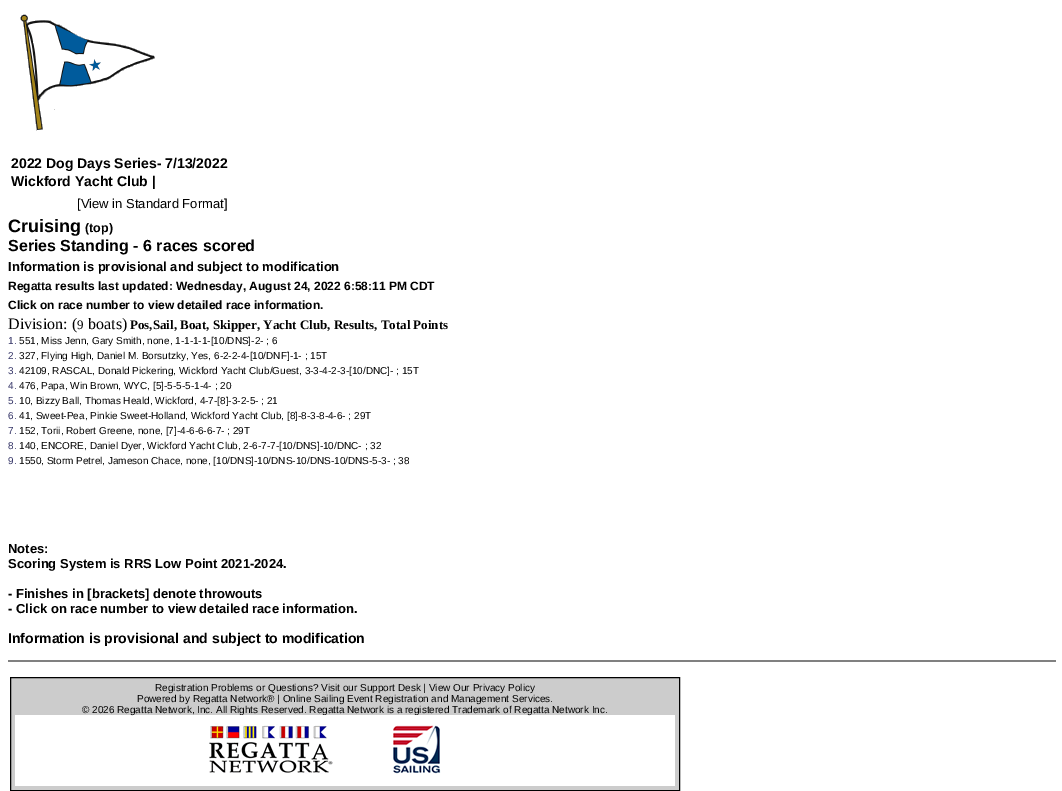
%!PS-Adobe-3.0
%%BoundingBox: 0 0 1062 791
%%LanguageLevel: 3
%%Pages: 1
%%EndComments
%%BeginProlog
/m { moveto } bind def
/l { lineto } bind def
/h { closepath } bind def
/f { fill } bind def
/S { stroke } bind def
/q { gsave } bind def
/Q { grestore } bind def
/fn { [ exch dup neg 0 0 3 -1 roll 0 0 ] selectfont } def
/tx { moveto show } def
/bx { rectfill } def
/im { 5 dict begin { /h /w /y /x /name } { exch def } forall
  gsave x y translate w h scale
  w h 8 [w 0 0 h 0 0] name (r) file false 3 colorimage grestore end } def
%%EndProlog
%%BeginSetup
<< /PageSize [1062 791] >> setpagedevice
%%EndSetup
%%Page: 1 1
0 791 translate 1 -1 scale
4 setmiterlimit
1 setgray
0 0 1062 791 bx
(image0.raw) 20 14 135 117 im
/LiberationSans-Bold 14 fn
0 setgray
(2022 Dog Days Series- 7/13/2022) 11 168 tx
(Wickford Yacht Club |) 11 186 tx
/LiberationSans-Regular 13 fn
([View in Standard Format]) 77 208 tx
/LiberationSans-Bold 18 fn
(Cruising) 8 232 tx
/LiberationSans-Bold 12.5 fn
(\(top\)) 85 232 tx
/LiberationSans-Bold 16 fn
(Series Standing - 6 races scored) 8 251 tx
/LiberationSans-Bold 13 fn
(Information is provisional and subject to modification) 8 271 tx
/LiberationSans-Bold 12 fn
(Regatta results last updated: Wednesday, August 24, 2022 6:58:11 PM CDT) 8 290 tx
(Click on race number to view detailed race information.) 8 309 tx
/LiberationSerif-Regular 16 fn
(Division: \() 8 329 tx
/LiberationSerif-Regular 13 fn
(9) 77 329 tx
/LiberationSerif-Regular 16 fn
(boats\)) 88 329 tx
/LiberationSerif-Bold 13 fn
(Pos,Sail, Boat, Skipper, Yacht Club, Results, Total Points) 130 329 tx
/LiberationSans-Regular 10 fn
0.2 0.2 0.4 setrgbcolor
(1.) 8 344 tx
0 setgray
(551, Miss Jenn, Gary Smith, none, 1-1-1-1-[10/DNS]-2- ; 6) 19 344 tx
0.2 0.2 0.4 setrgbcolor
(2.) 8 359 tx
0 setgray
(327, Flying High, Daniel M. Borsutzky, Yes, 6-2-2-4-[10/DNF]-1- ; 15T) 19 359 tx
0.2 0.2 0.4 setrgbcolor
(3.) 8 374 tx
0 setgray
(42109, RASCAL, Donald Pickering, Wickford Yacht Club/Guest, 3-3-4-2-3-[10/DNC]- ; 15T) 19 374 tx
0.2 0.2 0.4 setrgbcolor
(4.) 8 389 tx
0 setgray
(476, Papa, Win Brown, WYC, [5]-5-5-5-1-4- ; 20) 19 389 tx
0.2 0.2 0.4 setrgbcolor
(5.) 8 404 tx
0 setgray
(10, Bizzy Ball, Thomas Heald, Wickford, 4-7-[8]-3-2-5- ; 21) 19 404 tx
0.2 0.2 0.4 setrgbcolor
(6.) 8 419 tx
0 setgray
(41, Sweet-Pea, Pinkie Sweet-Holland, Wickford Yacht Club, [8]-8-3-8-4-6- ; 29T) 19 419 tx
0.2 0.2 0.4 setrgbcolor
(7.) 8 434 tx
0 setgray
(152, Torii, Robert Greene, none, [7]-4-6-6-6-7- ; 29T) 19 434 tx
0.2 0.2 0.4 setrgbcolor
(8.) 8 449 tx
0 setgray
(140, ENCORE, Daniel Dyer, Wickford Yacht Club, 2-6-7-7-[10/DNS]-10/DNC- ; 32) 19 449 tx
0.2 0.2 0.4 setrgbcolor
(9.) 8 464 tx
0 setgray
(1550, Storm Petrel, Jameson Chace, none, [10/DNS]-10/DNS-10/DNS-10/DNS-5-3- ; 38) 19 464 tx
/LiberationSans-Bold 13 fn
(Notes:) 8 553 tx
(Scoring System is RRS Low Point 2021-2024.) 8 568 tx
(- Finishes in [brackets] denote throwouts) 8 598 tx
(- Click on race number to view detailed race information.) 8 613 tx
/LiberationSans-Bold 14 fn
(Information is provisional and subject to modification) 8 643 tx
0.502 setgray
8 660 1048 2 bx
0.8 setgray
10.5 677.5 m 679.5 677.5 l 679.5 790.5 l 10.5 790.5 l h q f Q
0 setgray
S
/LiberationSans-Regular 10 fn
(Registration Problems or Questions? Visit our Support Desk | View Our Privacy Policy) 155 691 tx
(Powered by Regatta Network® | Online Sailing Event Registration and Management Services.) 137 702 tx
1 setgray
15 715 660 71 bx
0 setgray
(© 2026 Regatta Network, Inc. All Rights Reserved. Regatta Network is a registered Trademark of Regatta Network Inc.) 82 713 tx
(image1.raw) 209 715 124 59 im
(image2.raw) 393 715 48 59 im
showpage
%%EOF
